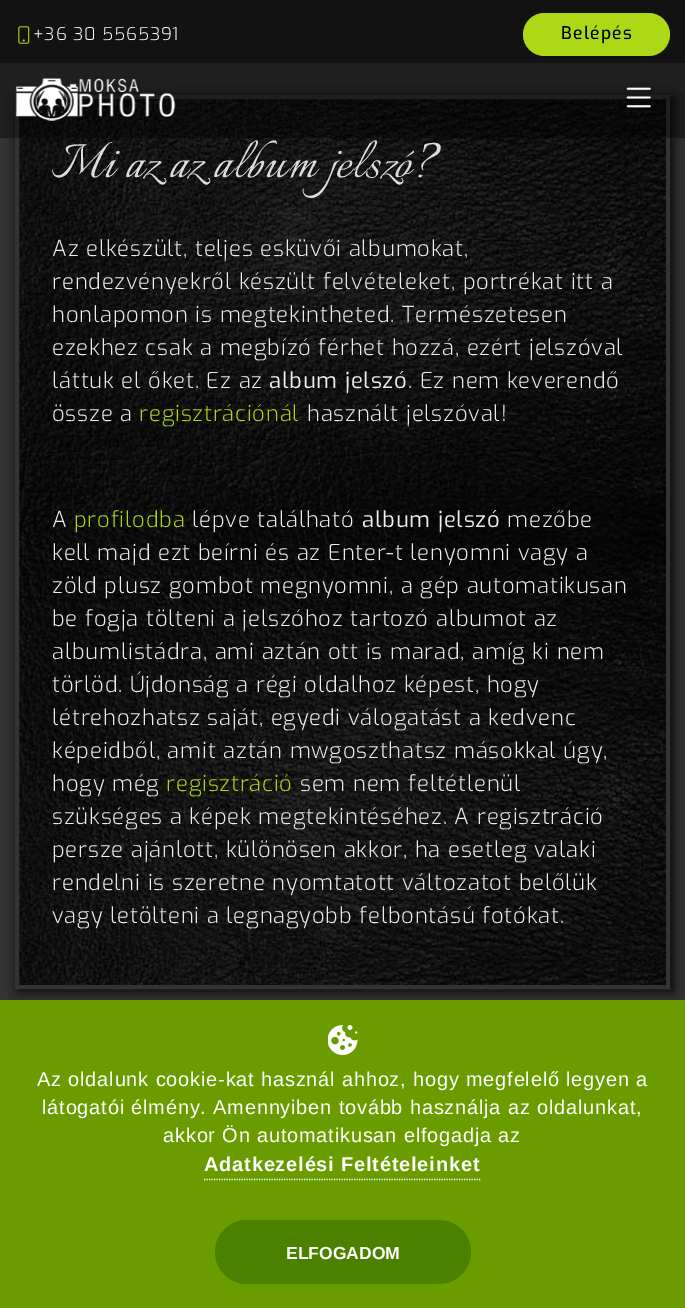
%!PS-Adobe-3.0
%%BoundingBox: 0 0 685 1308
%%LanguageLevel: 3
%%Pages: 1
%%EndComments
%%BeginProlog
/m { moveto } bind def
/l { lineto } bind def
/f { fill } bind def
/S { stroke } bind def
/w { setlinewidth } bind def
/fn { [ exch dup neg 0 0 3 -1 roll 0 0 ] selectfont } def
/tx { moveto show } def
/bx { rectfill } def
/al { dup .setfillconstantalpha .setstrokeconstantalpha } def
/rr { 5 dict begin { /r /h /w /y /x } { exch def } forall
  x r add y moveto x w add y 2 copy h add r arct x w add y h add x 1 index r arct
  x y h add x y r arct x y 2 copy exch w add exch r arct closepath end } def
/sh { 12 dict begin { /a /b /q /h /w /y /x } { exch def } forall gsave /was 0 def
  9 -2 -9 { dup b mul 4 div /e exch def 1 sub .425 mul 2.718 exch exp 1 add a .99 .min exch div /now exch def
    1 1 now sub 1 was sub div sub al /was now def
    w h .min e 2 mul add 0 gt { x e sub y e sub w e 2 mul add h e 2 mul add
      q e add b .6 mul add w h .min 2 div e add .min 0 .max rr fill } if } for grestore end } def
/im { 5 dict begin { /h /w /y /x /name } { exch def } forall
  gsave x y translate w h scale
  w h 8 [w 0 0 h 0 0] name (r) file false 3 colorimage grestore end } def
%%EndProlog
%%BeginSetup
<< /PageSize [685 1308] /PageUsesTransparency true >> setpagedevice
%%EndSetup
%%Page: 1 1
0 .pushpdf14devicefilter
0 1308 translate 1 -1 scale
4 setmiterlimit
0.2 setgray
0 0 685 1308 bx
0.071 setgray
0 0 685 63 bx
(image0.raw) 18 26 12 18 im
/Exo-Light 17.5 fn
1 setgray
33 40 m 0.8 0 (+36 30 5565391) ashow
0.675 0.847 0.082 setrgbcolor
523 13 147 43 21.5 rr f
/Exo-Medium 17.5 fn
0 setgray
561 39 m 1.25 0 (Belépés) ashow
18 98 655 893 0 6 1 sh
(image3.raw) 19 99 647 886 im
0.2 setgray
4 w
17 97 651 890 rectstroke
0.4 al
0 setgray
0 63 685 75 bx
1 al
(image1.raw) 15 78 161 43 im
(image2.raw) 626 87 25 21 im
/Italianno-Regular 60 fn
0.867 setgray
52 177 m 0.8 0 (Mi az az album jelszó?) ashow
/Exo-Light 22 fn
0.933 setgray
52 256 m 0.8 0 (Az elkészült, teljes esküvői albumokat,) ashow
52 289 m 0.8 0 (rendezvényekről készült felvételeket, portrékat itt a) ashow
52 322 m 0.8 0 (honlapomon is megtekintheted. Természetesen) ashow
52 355 m 0.8 0 (ezekhez csak a megbízó férhet hozzá, ezért jelszóval) ashow
52 388 m 0.8 0 (láttuk el őket. Ez az) ashow
/Exo-Regular 22 fn
269 388 m 0.8 0 (album jelszó) ashow
/Exo-Light 22 fn
408 388 m 0.8 0 (. Ez nem keverendő) ashow
52 421 m 0.8 0 (össze a) ashow
0.675 0.847 0.082 setrgbcolor
139 421 m 0.8 0 (regisztrációnál) ashow
0.933 setgray
307 421 m 0.8 0 (használt jelszóval!) ashow
52 527 m 0.8 0 (A) ashow
0.675 0.847 0.082 setrgbcolor
74 527 m 0.8 0 (profilodba) ashow
0.933 setgray
192 527 m 0.8 0 (lépve található) ashow
/Exo-Regular 22 fn
362 527 m 0.8 0 (album jelszó) ashow
/Exo-Light 22 fn
507 527 m 0.8 0 (mezőbe) ashow
52 560 m 0.8 0 (kell majd ezt beírni és az Enter-t lenyomni vagy a) ashow
52 593 m 0.8 0 (zöld plusz gombot megnyomni, a gép automatikusan) ashow
52 626 m 0.8 0 (be fogja tölteni a jelszóhoz tartozó albumot az) ashow
52 659 m 0.8 0 (albumlistádra, ami aztán ott is marad, amíg ki nem) ashow
52 692 m 0.8 0 (törlöd. Újdonság a régi oldalhoz képest, hogy) ashow
52 725 m 0.8 0 (létrehozhatsz saját, egyedi válogatást a kedvenc) ashow
52 758 m 0.8 0 (képeidből, amit aztán mwgoszthatsz másokkal úgy,) ashow
52 791 m 0.8 0 (hogy még) ashow
0.675 0.847 0.082 setrgbcolor
166 791 m 0.8 0 (regisztráció) ashow
0.933 setgray
300 791 m 0.8 0 (sem nem feltétlenül) ashow
52 824 m 0.8 0 (szükséges a képek megtekintéséhez. A regisztráció) ashow
52 857 m 0.8 0 (persze ajánlott, különösen akkor, ha esetleg valaki) ashow
52 890 m 0.8 0 (rendelni is szeretne nyomtatott változatot belőlük) ashow
52 923 m 0.8 0 (vagy letölteni a legnagyobb felbontású fotókat.) ashow
0.416 0.612 0 setrgbcolor
0 1000 685 308 bx
(image4.raw) 328 1025 30 30 im
/LiberationSans-Regular 20 fn
1 setgray
37 1086 m 0.8 0 (Az oldalunk cookie-kat használ ahhoz, hogy megfelelő legyen a) ashow
42 1114 m 0.8 0 (látogatói élmény. Amennyiben tovább használja az oldalunkat,) ashow
163 1142 m 0.8 0 (akkor Ön automatikusan elfogadja az) ashow
1.2 w
[1.25 1.25] 0 setdash
204 1179.5 m 481 1179.5 l S
/LiberationSans-Bold 20 fn
204 1171 m 0.8 0 (Adatkezelési Feltételeinket) ashow
0.298 0.506 0 setrgbcolor
215 1220 256 64 32 rr f
/LiberationSans-Bold 17.5 fn
1 setgray
(ELFOGADOM) 286 1259 tx
.poppdf14devicefilter showpage
%%EOF
